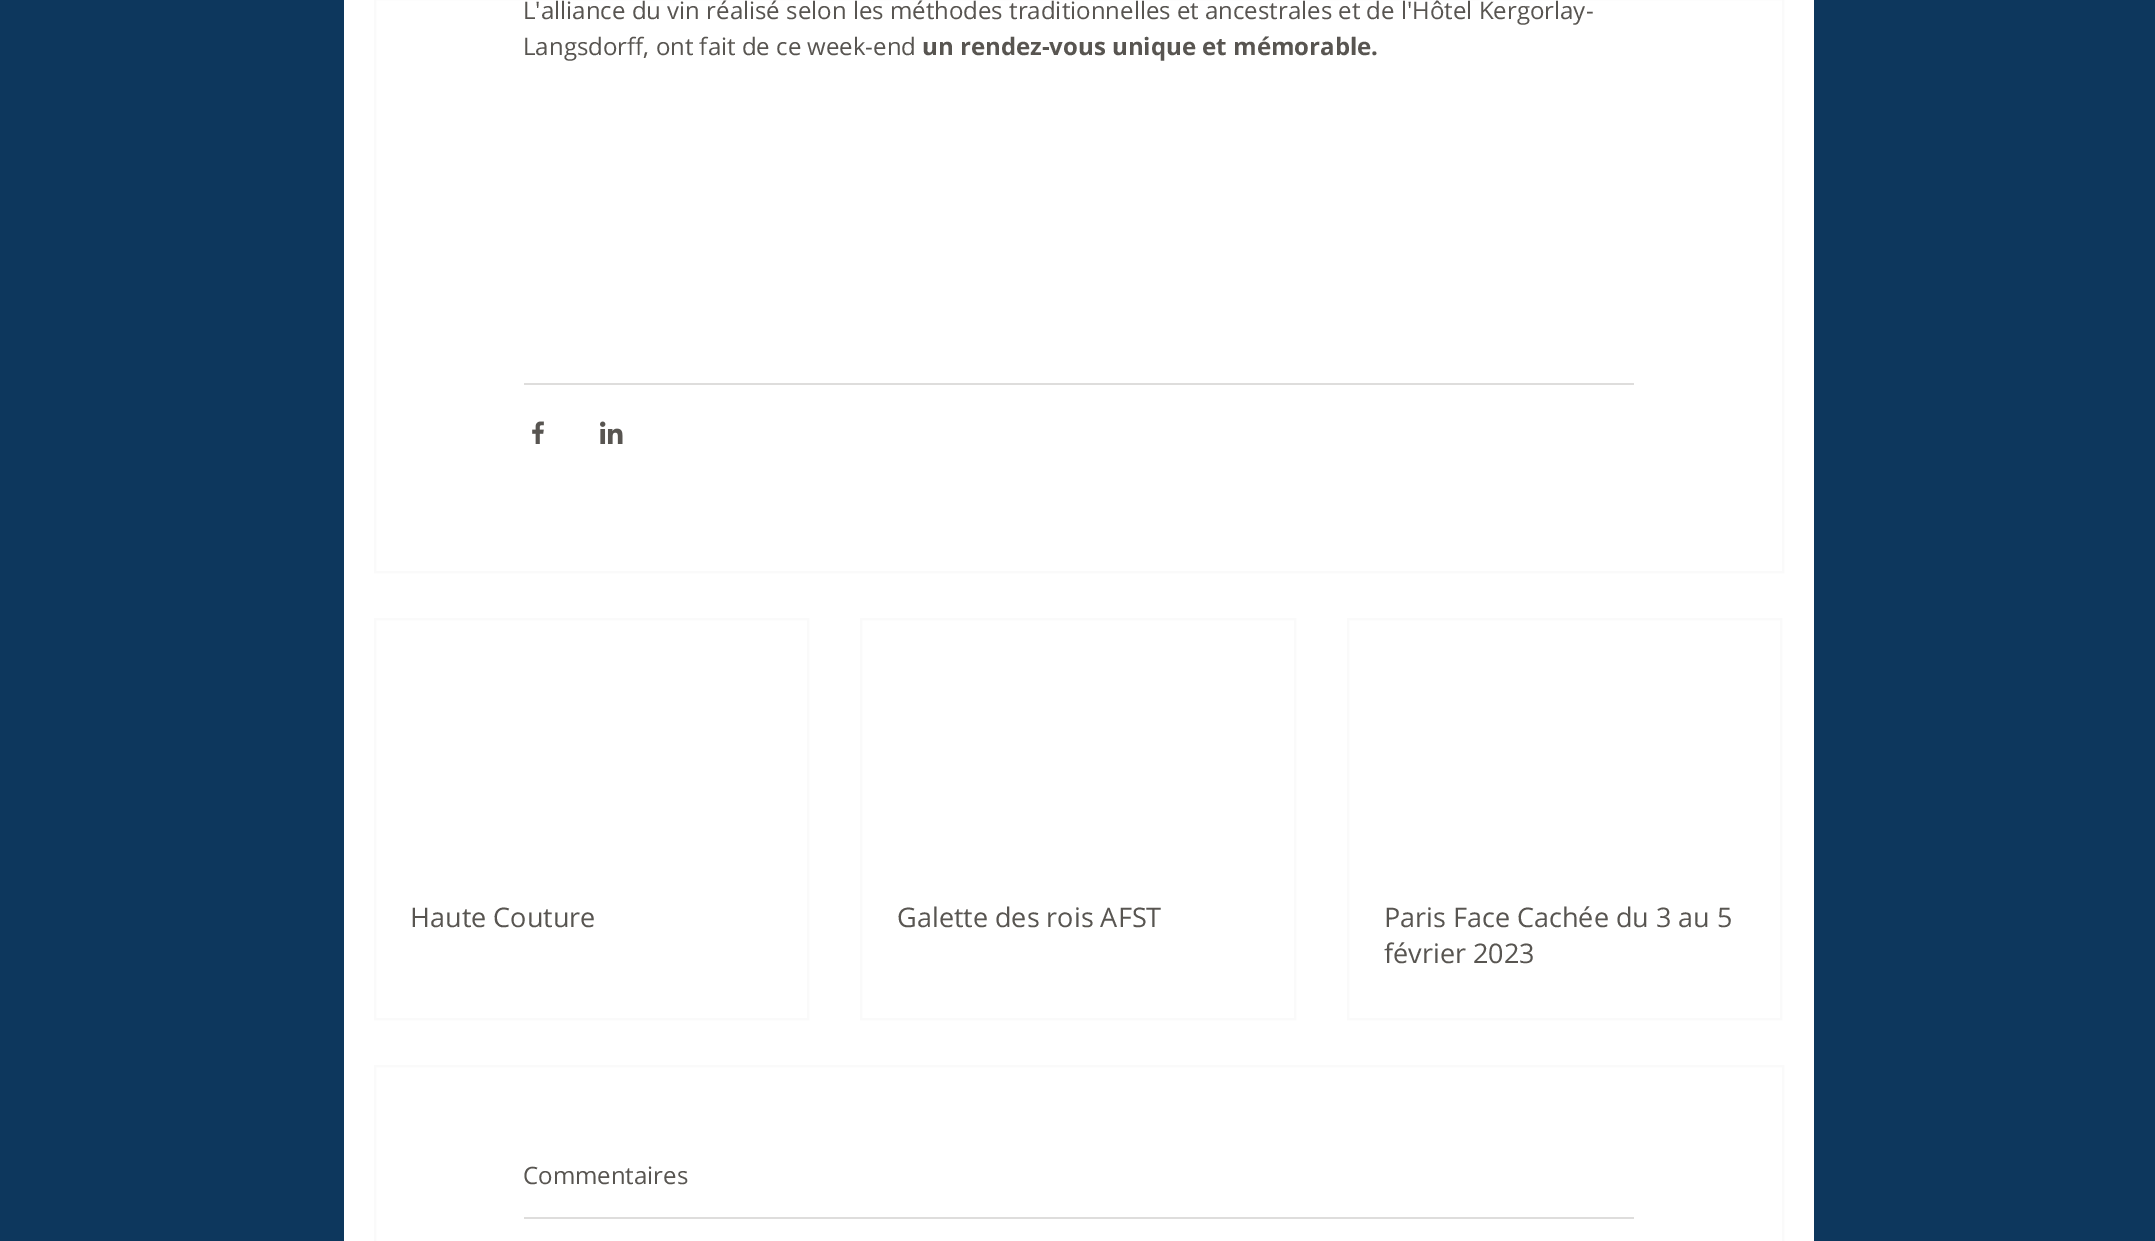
%!PS-Adobe-3.0
%%BoundingBox: 0 0 2155 1241
%%LanguageLevel: 3
%%Pages: 1
%%EndComments
%%BeginProlog
/w { setlinewidth } bind def
/fn { [ exch dup neg 0 0 3 -1 roll 0 0 ] selectfont } def
/tx { moveto show } def
/bx { rectfill } def
/im { 5 dict begin { /h /w /y /x /name } { exch def } forall
  gsave x y translate w h scale
  w h 8 [w 0 0 h 0 0] name (r) file false 3 colorimage grestore end } def
%%EndProlog
%%BeginSetup
<< /PageSize [2155 1241] >> setpagedevice
%%EndSetup
%%Page: 1 1
0 1241 translate 1 -1 scale
4 setmiterlimit
0.051 0.216 0.365 setrgbcolor
0 0 2155 1241 bx
1 setgray
344 0 1470 1241 bx
0.98 setgray
2 w
375 -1 1408 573 rectstroke
/OpenSans-Regular 24 fn
0.345 0.333 0.318 setrgbcolor
(L'alliance du vin réalisé selon les méthodes traditionnelles et ancestrales et de l'Hôtel Kergorlay-) 523 19 tx
(Langsdorff, ont fait de ce week-end) 523 55 tx
/OpenSans-Bold 24 fn
(un rendez-vous unique et mémorable.) 922 55 tx
0.871 0.867 0.863 setrgbcolor
524 383 1110 2 bx
(image0.raw) 532 421 12 23 im
(image1.raw) 600 421 23 23 im
0.98 setgray
375 619 433 400 rectstroke
/OpenSans-Regular 27 fn
0.345 0.333 0.318 setrgbcolor
(Haute Couture) 410 927 tx
0.98 setgray
861 619 434 400 rectstroke
0.345 0.333 0.318 setrgbcolor
(Galette des rois AFST) 897 927 tx
0.98 setgray
1348 619 433 400 rectstroke
0.345 0.333 0.318 setrgbcolor
(Paris Face Cachée du 3 au 5) 1384 927 tx
(février 2023) 1384 963 tx
0.98 setgray
375 1066 1408 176 rectstroke
/OpenSans-Regular 24 fn
0.345 0.333 0.318 setrgbcolor
(Commentaires) 523 1184 tx
0.871 0.867 0.863 setrgbcolor
524 1217 1110 2 bx
showpage
%%EOF
